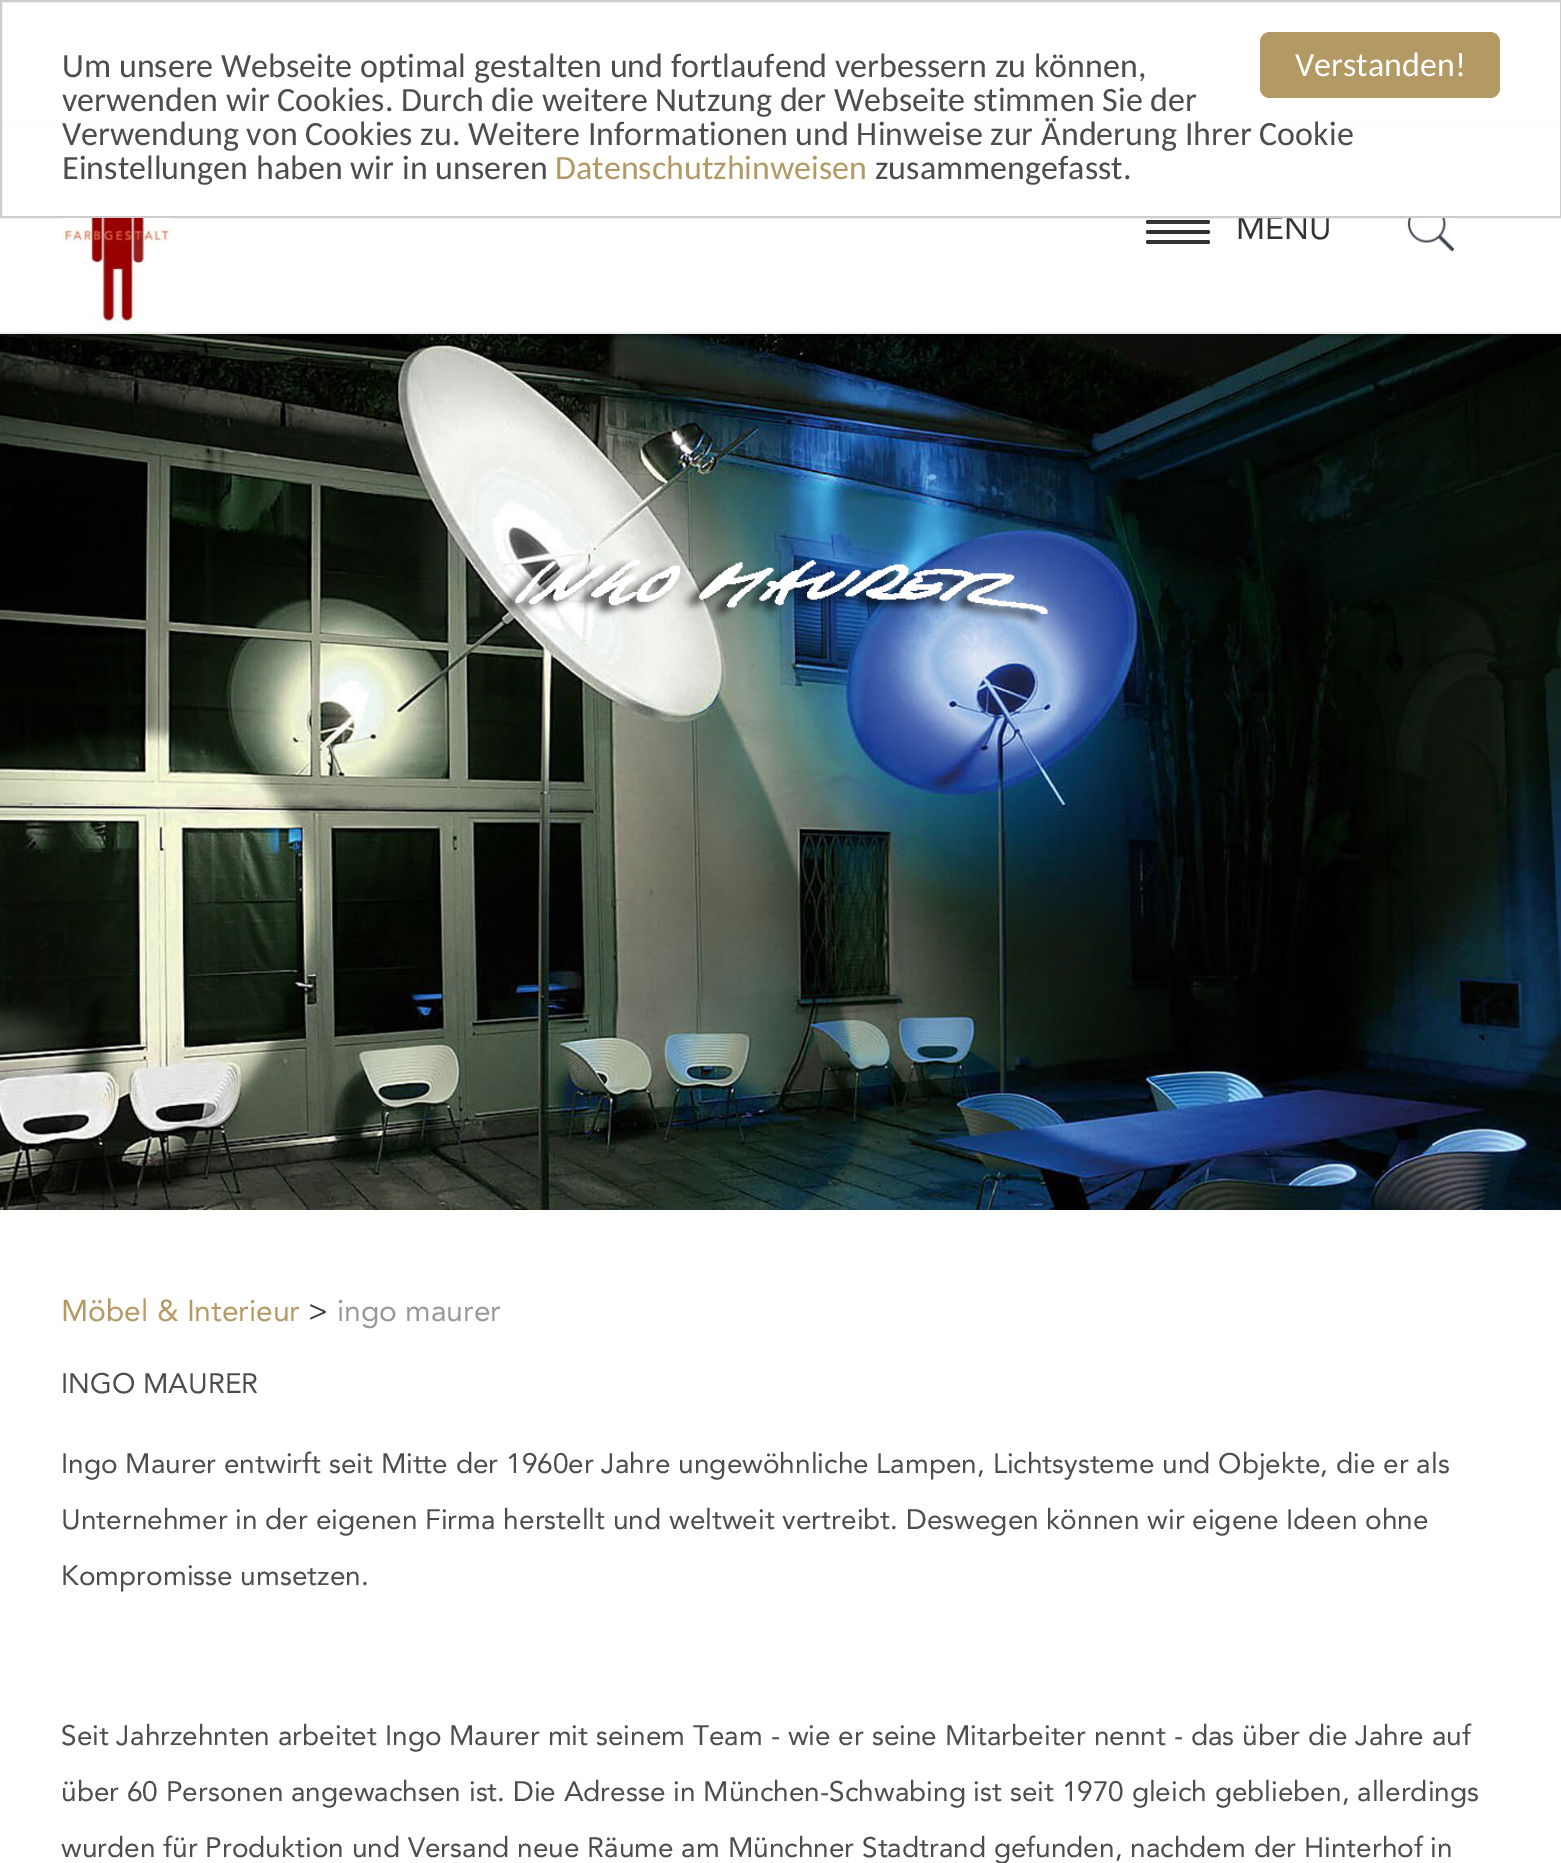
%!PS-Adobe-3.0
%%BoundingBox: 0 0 1561 1863
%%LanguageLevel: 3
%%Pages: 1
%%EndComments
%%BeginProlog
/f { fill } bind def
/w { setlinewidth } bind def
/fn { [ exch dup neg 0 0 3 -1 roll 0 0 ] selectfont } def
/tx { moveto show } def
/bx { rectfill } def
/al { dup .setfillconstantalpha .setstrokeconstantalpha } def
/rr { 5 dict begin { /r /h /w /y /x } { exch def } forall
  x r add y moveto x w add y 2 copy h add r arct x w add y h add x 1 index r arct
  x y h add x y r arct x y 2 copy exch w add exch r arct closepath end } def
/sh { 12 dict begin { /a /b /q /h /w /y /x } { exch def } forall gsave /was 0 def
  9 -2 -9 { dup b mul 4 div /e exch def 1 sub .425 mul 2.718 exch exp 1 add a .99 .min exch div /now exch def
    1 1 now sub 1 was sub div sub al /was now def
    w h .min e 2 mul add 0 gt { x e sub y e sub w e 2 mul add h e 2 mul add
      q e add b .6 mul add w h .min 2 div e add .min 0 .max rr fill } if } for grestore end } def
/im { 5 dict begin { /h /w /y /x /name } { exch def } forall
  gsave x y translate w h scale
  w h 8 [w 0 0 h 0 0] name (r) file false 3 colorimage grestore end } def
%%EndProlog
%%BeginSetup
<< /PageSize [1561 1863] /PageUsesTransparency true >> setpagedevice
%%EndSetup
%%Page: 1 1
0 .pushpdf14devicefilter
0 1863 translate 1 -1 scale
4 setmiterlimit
1 setgray
0 0 1561 1863 bx
(image2.raw) 0 334 1561 876 im
0 setgray
0 132 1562 202 0 3 0.65 sh
1 setgray
2 126 1558 90 bx
0 218 1561 114 bx
/Avenir-Regular 32 fn
0.2 setgray
(MENU) 1236 239 tx
0.8 setgray
2 w
1 1 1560 216 rectstroke
/Carlito-Regular 34 fn
0.302 setgray
(Um unsere Webseite optimal gestalten und fortlaufend verbessern zu können,) 62 77 tx
(verwenden wir Cookies. Durch die weitere Nutzung der Webseite stimmen Sie der) 62 111 tx
(Verwendung von Cookies zu. Weitere Informationen und Hinweise zur Änderung Ihrer Cookie) 62 145 tx
(Einstellungen haben wir in unseren) 62 179 tx
0.702 0.6 0.392 setrgbcolor
(Datenschutzhinweisen) 555 179 tx
0.302 setgray
(zusammengefasst.) 875 179 tx
0.702 0.6 0.392 setrgbcolor
1260 32 240 66 10 rr f
1 setgray
(Verstanden!) 1295 76 tx
0.933 setgray
0 332 1561 2 bx
(image0.raw) 62 218 110 106 im
0.2 setgray
1146 220 64 4 2 rr f
1146 230 64 4 2 rr f
1146 240 64 4 2 rr f
(image1.raw) 1407 218 47 34 im
(image3.raw) 500 559 548 67 im
/Avenir-Regular 30 fn
0.702 0.6 0.392 setrgbcolor
(Möbel & Interieur) 61 1321 tx
0.2 setgray
(>) 308 1321 tx
0.6 setgray
(ingo maurer) 337 1321 tx
/Avenir-Regular 28 fn
0.302 setgray
(INGO MAURER) 61 1393 tx
(Ingo Maurer entwirft seit Mitte der 1960er Jahre ungewöhnliche Lampen, Lichtsysteme und Objekte, die er als) 61 1473 tx
(Unternehmer in der eigenen Firma herstellt und weltweit vertreibt. Deswegen können wir eigene Ideen ohne) 61 1529 tx
(Kompromisse umsetzen.) 61 1585 tx
(Seit Jahrzehnten arbeitet Ingo Maurer mit seinem Team - wie er seine Mitarbeiter nennt - das über die Jahre auf) 61 1745 tx
(über 60 Personen angewachsen ist. Die Adresse in München-Schwabing ist seit 1970 gleich geblieben, allerdings) 61 1801 tx
(wurden für Produktion und Versand neue Räume am Münchner Stadtrand gefunden, nachdem der Hinterhof in) 61 1857 tx
.poppdf14devicefilter showpage
%%EOF
